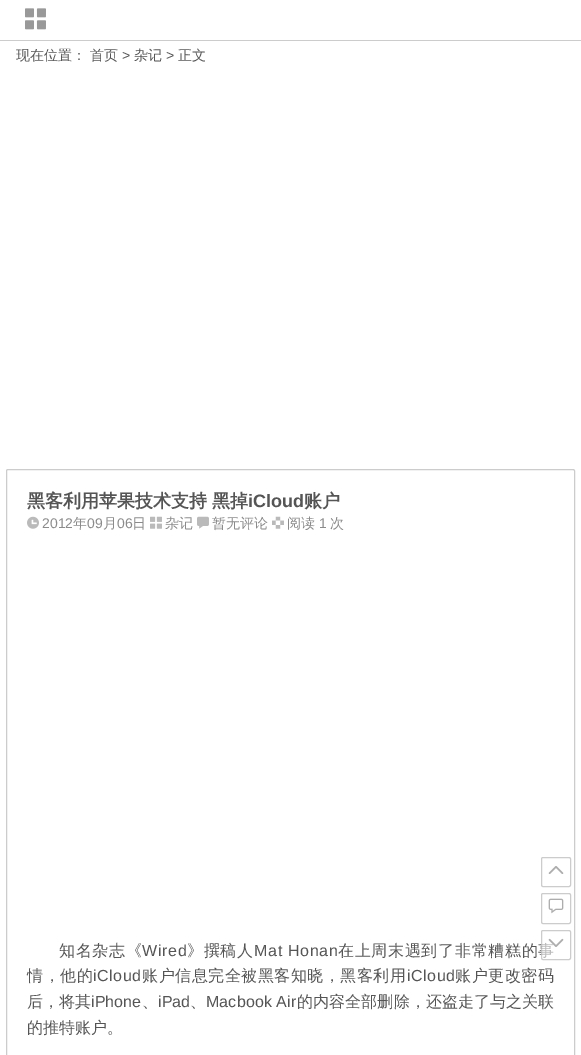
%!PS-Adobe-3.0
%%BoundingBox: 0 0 581 1055
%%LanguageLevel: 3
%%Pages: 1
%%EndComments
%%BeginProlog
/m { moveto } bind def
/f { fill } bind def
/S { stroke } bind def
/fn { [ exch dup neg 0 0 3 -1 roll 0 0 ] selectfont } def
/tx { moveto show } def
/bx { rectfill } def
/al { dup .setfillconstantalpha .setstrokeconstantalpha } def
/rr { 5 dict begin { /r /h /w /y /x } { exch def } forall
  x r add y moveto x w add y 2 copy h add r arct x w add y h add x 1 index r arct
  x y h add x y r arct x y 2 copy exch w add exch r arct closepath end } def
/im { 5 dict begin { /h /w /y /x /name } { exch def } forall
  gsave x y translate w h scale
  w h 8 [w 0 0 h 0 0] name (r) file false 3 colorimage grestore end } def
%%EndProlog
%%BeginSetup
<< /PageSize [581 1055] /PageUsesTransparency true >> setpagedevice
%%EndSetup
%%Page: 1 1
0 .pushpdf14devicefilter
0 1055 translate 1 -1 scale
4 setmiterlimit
1 setgray
0 0 581 1055 bx
0.8 setgray
0 40 581 1 bx
(image0.raw) 25 8 21 22 im
/WenQuanYiZenHei-Medium 14 fn
0.333 setgray
(现在位置：) 16 60 tx
(首页) 90 60 tx
/LiberationSans-Regular 14 fn
(>) 122 60 tx
/WenQuanYiZenHei-Medium 14 fn
(杂记) 134 60 tx
/LiberationSans-Regular 14 fn
(>) 166 60 tx
/WenQuanYiZenHei-Medium 14 fn
(正文) 178 60 tx
0.8 setgray
6.5 469.5 568 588 1.5 rr S
/WenQuanYiZenHei-Bold 18 fn
0.333 setgray
(黑客利用苹果技术支持 黑掉) 27 507 tx
/LiberationSans-Bold 18 fn
(iCloud) 248 507 tx
/WenQuanYiZenHei-Bold 18 fn
(账户) 304 507 tx
(image1.raw) 27 516 12 13 im
/LiberationSans-Regular 14 fn
0.545 setgray
(2012) 42 528 tx
/WenQuanYiZenHei-Medium 14 fn
(年) 73 528 tx
/LiberationSans-Regular 14 fn
(09) 87 528 tx
/WenQuanYiZenHei-Medium 14 fn
(月) 103 528 tx
/LiberationSans-Regular 14 fn
(06) 117 528 tx
/WenQuanYiZenHei-Medium 14 fn
(日) 132 528 tx
(image2.raw) 150 516 12 13 im
(杂记) 165 528 tx
(image3.raw) 197 516 12 13 im
(暂无评论) 212 528 tx
(image4.raw) 272 516 12 13 im
(阅读) 287 528 tx
/LiberationSans-Regular 14 fn
(1) 319 528 tx
/WenQuanYiZenHei-Medium 14 fn
(次) 330 528 tx
/WenQuanYiZenHei-Medium 16 fn
0.333 setgray
59 956 m 0.7 0 (知名杂志《) ashow
/LiberationSans-Regular 16 fn
142 956 m 0.7 0 (Wired) ashow
/WenQuanYiZenHei-Medium 16 fn
187 956 m 0.7 0 (》撰稿人) ashow
/LiberationSans-Regular 16 fn
254 956 m 0.7 0 (Mat Honan) ashow
/WenQuanYiZenHei-Medium 16 fn
338 956 m 0.7 0 (在上周末遇到了非常糟糕的事) ashow
27 981 m 0.5 0 (情，他的) ashow
/LiberationSans-Regular 16 fn
93 981 m 0.5 0 (iCloud) ashow
/WenQuanYiZenHei-Medium 16 fn
142 981 m 0.5 0 (账户信息完全被黑客知晓，黑客利用) ashow
/LiberationSans-Regular 16 fn
407 981 m 0.5 0 (iCloud) ashow
/WenQuanYiZenHei-Medium 16 fn
455 981 m 0.5 0 (账户更改密码) ashow
27 1007 m 0.1 0 (后，将其) ashow
/LiberationSans-Regular 16 fn
91 1007 m 0.1 0 (iPhone) ashow
/WenQuanYiZenHei-Medium 16 fn
142 1007 m 0.1 0 (、) ashow
/LiberationSans-Regular 16 fn
158 1007 m 0.1 0 (iPad) ashow
/WenQuanYiZenHei-Medium 16 fn
190 1007 m 0.1 0 (、) ashow
/LiberationSans-Regular 16 fn
206 1007 m 0.1 0 (Macbook Air) ashow
/WenQuanYiZenHei-Medium 16 fn
297 1007 m 0.1 0 (的内容全部删除，还盗走了与之关联) ashow
(的推特账户。) 27 1033 tx
0.8 setgray
541.5 857.5 29 29 1.5 rr S
(image5.raw) 548 866 16 8 im
541.5 893.5 29 30 1.5 rr S
(image6.raw) 548 898 16 16 im
0.6 al
1 setgray
541 930 30 30 2 rr f
0.667 setgray
541.5 930.5 29 29 1.5 rr S
1 al
(image7.raw) 548 938 16 9 im
.poppdf14devicefilter showpage
%%EOF
